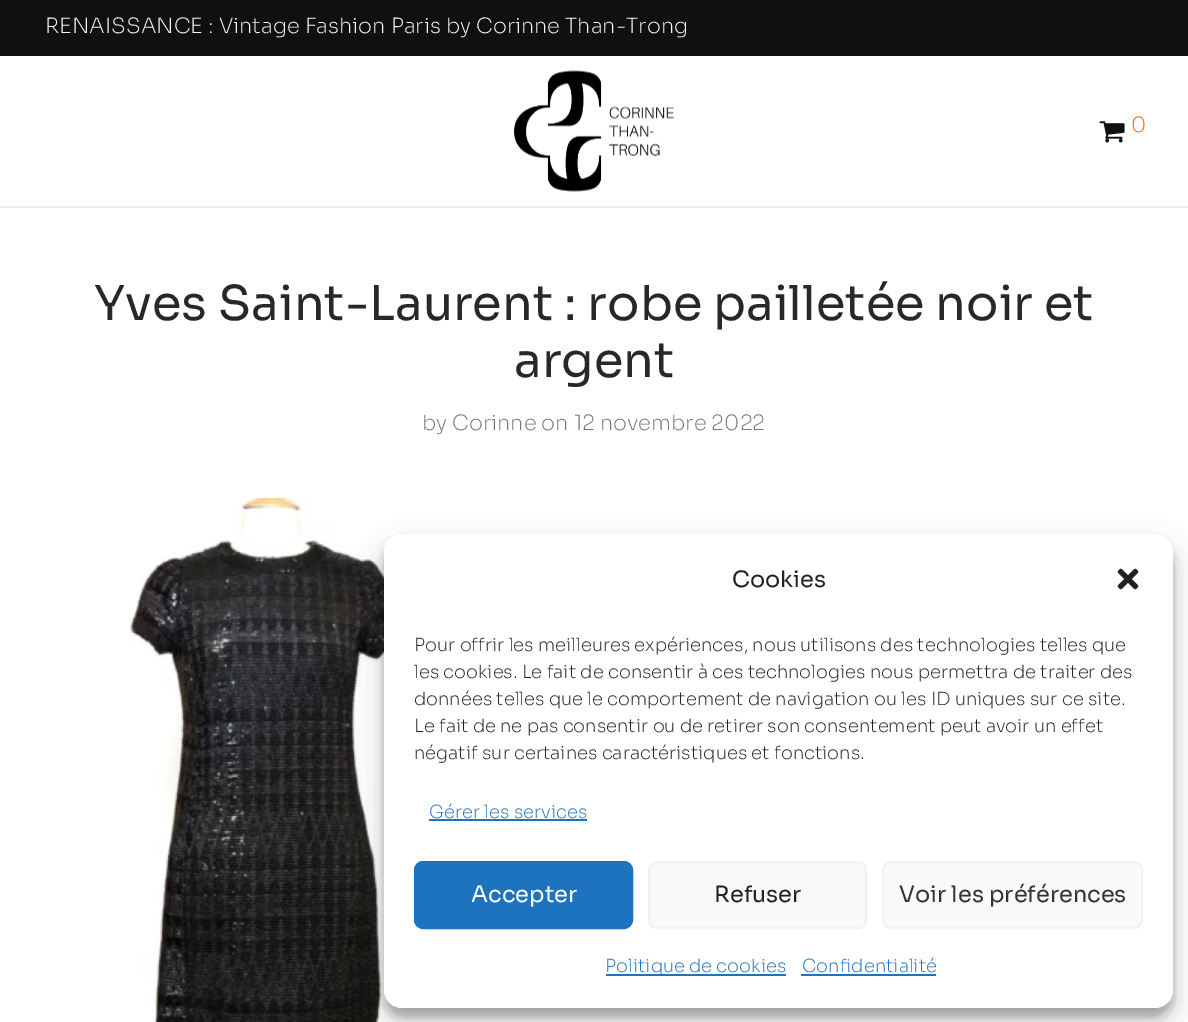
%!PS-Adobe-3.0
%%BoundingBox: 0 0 1188 1022
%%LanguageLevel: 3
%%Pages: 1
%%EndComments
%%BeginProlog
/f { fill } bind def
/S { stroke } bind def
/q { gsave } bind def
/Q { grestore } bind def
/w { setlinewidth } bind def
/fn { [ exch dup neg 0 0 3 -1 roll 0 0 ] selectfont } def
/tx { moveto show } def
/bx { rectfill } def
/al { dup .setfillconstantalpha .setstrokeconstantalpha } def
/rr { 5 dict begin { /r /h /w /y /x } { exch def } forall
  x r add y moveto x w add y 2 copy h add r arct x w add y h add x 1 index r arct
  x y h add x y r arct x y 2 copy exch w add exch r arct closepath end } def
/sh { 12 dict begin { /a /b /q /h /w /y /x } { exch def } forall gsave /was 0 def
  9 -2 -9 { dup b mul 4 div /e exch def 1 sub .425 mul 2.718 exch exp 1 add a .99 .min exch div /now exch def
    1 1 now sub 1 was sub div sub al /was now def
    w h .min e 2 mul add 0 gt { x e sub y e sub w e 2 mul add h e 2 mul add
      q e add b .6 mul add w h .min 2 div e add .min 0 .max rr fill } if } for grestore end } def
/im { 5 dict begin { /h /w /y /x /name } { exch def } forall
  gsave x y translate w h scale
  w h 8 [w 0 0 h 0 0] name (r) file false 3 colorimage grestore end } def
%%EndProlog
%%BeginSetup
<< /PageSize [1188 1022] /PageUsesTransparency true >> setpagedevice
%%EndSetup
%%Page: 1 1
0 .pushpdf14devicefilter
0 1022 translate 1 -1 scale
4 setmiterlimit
1 setgray
0 0 1188 1022 bx
0.059 0.063 0.067 setrgbcolor
0 0 1188 56 bx
/Sora-ExtraLight 21 fn
0.976 setgray
(RENAISSANCE : Vintage Fashion Paris by Corinne Than-Trong) 45 33 tx
0.933 setgray
0 206 1188 2 bx
(image0.raw) 514 70 160 122 im
(image1.raw) 1099 121 26 22 im
1 0.408 0 setrgbcolor
(0) 1131 132 tx
/Sora-Regular 48 fn
0.157 setgray
(Yves Saint-Laurent : robe pailletée noir et) 94 320 tx
(argent) 514 377 tx
/Sora-ExtraLight 21 fn
0.467 setgray
(by Corinne on 12 novembre 2022) 422 430 tx
(image2.raw) 129 498 283 524 im
0 setgray
384 543 789 474 18 4.5 0.23 sh
384 549 789 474 18 15 0.19 sh
1 setgray
384 534 789 474 18 rr f
/Sora-Regular 22.5 fn
0.133 setgray
(Cookies) 732 587 tx
(image3.raw) 1117 568 22 22 im
/Sora-ExtraLight 18 fn
(Pour offrir les meilleures expériences, nous utilisons des technologies telles que) 414 651 tx
(les cookies. Le fait de consentir à ces technologies nous permettra de traiter des) 414 678 tx
(données telles que le comportement de navigation ou les ID uniques sur ce site.) 414 705 tx
(Le fait de ne pas consentir ou de retirer son consentement peut avoir un effet) 414 732 tx
(négatif sur certaines caractéristiques et fonctions.) 414 759 tx
0.118 0.451 0.745 setrgbcolor
(Gérer les services) 429 818 tx
429 819 158 2 bx
415 862 217 66 8 rr q f Q
2 w
S
/Sora-Regular 22.5 fn
1 setgray
(Accepter) 471 902 tx
0.976 setgray
649 862 217 66 8 rr q f Q
0.949 setgray
S
0.133 setgray
(Refuser) 714 902 tx
0.976 setgray
883 862 259 66 8 rr q f Q
0.949 setgray
S
0.2 setgray
(Voir les préférences) 899 902 tx
0.118 0.451 0.745 setrgbcolor
606 974 180 2 bx
/Sora-ExtraLight 18 fn
(Politique de cookies) 605 972 tx
(Confidentialité) 802 972 tx
801 974 135 2 bx
.poppdf14devicefilter showpage
%%EOF
